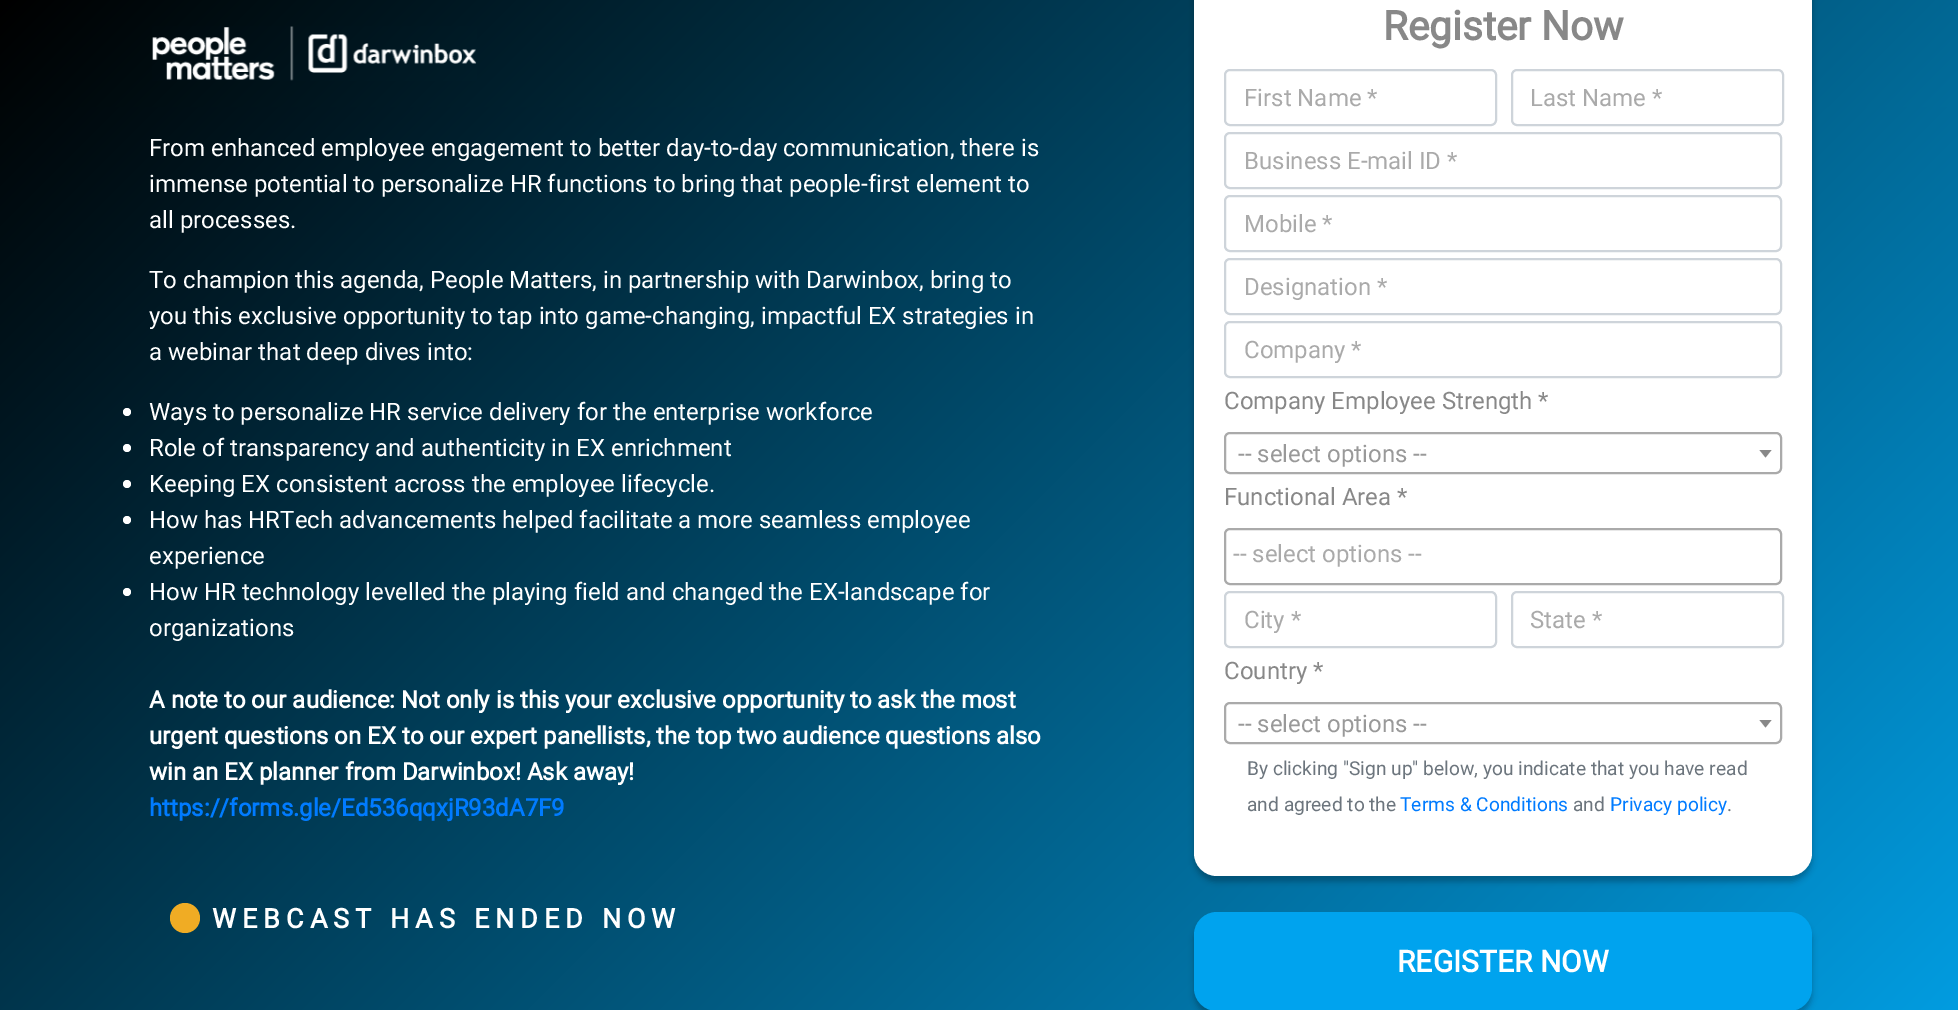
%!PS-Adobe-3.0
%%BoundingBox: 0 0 1958 1010
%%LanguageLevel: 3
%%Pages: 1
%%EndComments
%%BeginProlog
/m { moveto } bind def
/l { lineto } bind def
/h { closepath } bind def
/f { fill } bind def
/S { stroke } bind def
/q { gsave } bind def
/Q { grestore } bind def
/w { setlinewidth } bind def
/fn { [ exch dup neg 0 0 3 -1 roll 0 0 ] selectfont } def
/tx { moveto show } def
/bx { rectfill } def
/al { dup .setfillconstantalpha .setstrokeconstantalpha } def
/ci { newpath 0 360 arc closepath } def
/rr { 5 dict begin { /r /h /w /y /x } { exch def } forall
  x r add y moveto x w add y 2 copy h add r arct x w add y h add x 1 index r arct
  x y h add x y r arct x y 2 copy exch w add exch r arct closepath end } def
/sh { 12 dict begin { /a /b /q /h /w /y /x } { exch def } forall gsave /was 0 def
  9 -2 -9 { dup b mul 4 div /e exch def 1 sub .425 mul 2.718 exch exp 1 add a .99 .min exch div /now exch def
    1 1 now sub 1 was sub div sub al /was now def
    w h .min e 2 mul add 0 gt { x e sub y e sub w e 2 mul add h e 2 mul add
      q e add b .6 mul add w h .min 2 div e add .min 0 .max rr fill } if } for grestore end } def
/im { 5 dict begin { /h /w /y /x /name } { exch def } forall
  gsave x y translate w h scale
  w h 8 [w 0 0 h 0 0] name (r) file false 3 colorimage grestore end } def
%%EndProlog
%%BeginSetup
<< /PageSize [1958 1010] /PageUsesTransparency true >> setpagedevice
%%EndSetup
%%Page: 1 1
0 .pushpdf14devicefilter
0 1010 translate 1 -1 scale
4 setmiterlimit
1 setgray
0 0 1958 1010 bx
q 0 107 m 1958 107 l 1958 1010 l 0 1010 l h clip newpath
<< /ShadingType 2 /ColorSpace /DeviceRGB /Coords [1722 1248 237 -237] /Extend [true true] /Function << /FunctionType 2 /Domain [0 1] /C0 [0.004 0.612 0.878] /C1 [0 0 0] /N 1 >> >> shfill Q
q 0 0 m 1958 0 l 1958 107 l 0 107 l h clip newpath
<< /ShadingType 2 /ColorSpace /DeviceRGB /Coords [1722 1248 237 -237] /Extend [true true] /Function << /FunctionType 2 /Domain [0 1] /C0 [0.004 0.612 0.878] /C1 [0 0 0] /N 1 >> >> shfill Q
(image0.raw) 152 26 325 55 im
/Roboto-Regular 24 fn
(From enhanced employee engagement to better day-to-day communication, there is) 149 156 tx
(immense potential to personalize HR functions to bring that people-first element to) 149 192 tx
(all processes.) 149 228 tx
(To champion this agenda, People Matters, in partnership with Darwinbox, bring to) 149 288 tx
(you this exclusive opportunity to tap into game-changing, impactful EX strategies in) 149 324 tx
(a webinar that deep dives into:) 149 360 tx
127 412 4 ci f
(Ways to personalize HR service delivery for the enterprise workforce) 149 420 tx
127 448 4 ci f
(Role of transparency and authenticity in EX enrichment) 149 456 tx
127 484 4 ci f
(Keeping EX consistent across the employee lifecycle.) 149 492 tx
127 520 4 ci f
(How has HRTech advancements helped facilitate a more seamless employee) 149 528 tx
(experience) 149 564 tx
127 592 4 ci f
(How HR technology levelled the playing field and changed the EX-landscape for) 149 600 tx
(organizations) 149 636 tx
/Roboto-Bold 24 fn
(A note to our audience: Not only is this your exclusive opportunity to ask the most) 149 708 tx
(urgent questions on EX to our expert panellists, the top two audience questions also) 149 744 tx
(win an EX planner from Darwinbox! Ask away!) 149 780 tx
0 0.482 1 setrgbcolor
(https://forms.gle/Ed536qqxjR93dA7F9) 149 816 tx
0.941 0.675 0.141 setrgbcolor
185 918 15 ci f
/Roboto-Bold 27 fn
1 setgray
212 928 m 6 0 (WEBCAST HAS ENDED NOW) ashow
0 setgray
1194 -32 618 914 23 3 0.25 sh
1 setgray
1194 -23 618 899 23 rr f
/Roboto-Bold 40.5 fn
0.533 setgray
(Register Now) 1383 40 tx
0.808 0.831 0.855 setrgbcolor
2 w
1225 70 271 55 5 rr S
/Roboto-Regular 24 fn
0.667 setgray
(First Name *) 1244 106 tx
0.808 0.831 0.855 setrgbcolor
1512 70 271 55 5 rr S
0.667 setgray
(Last Name *) 1530 106 tx
0.808 0.831 0.855 setrgbcolor
1225 133 556 55 5 rr S
0.667 setgray
(Business E-mail ID *) 1244 169 tx
0.808 0.831 0.855 setrgbcolor
1225 196 556 55 5 rr S
0.667 setgray
(Mobile *) 1244 232 tx
0.808 0.831 0.855 setrgbcolor
1225 259 556 55 5 rr S
0.667 setgray
(Designation *) 1244 295 tx
0.808 0.831 0.855 setrgbcolor
1225 322 556 55 5 rr S
0.667 setgray
(Company *) 1244 358 tx
0.533 setgray
(Company Employee Strength *) 1224 409 tx
0.667 setgray
1225 433 556 40 5 rr S
0.6 setgray
(-- select options --) 1238 462 tx
0.533 setgray
1759.5 450 m 1771.5 450 l 1765.5 457.5 l h f
(Functional Area *) 1224 505 tx
0.667 setgray
1225 529 556 55 5 rr S
(-- select options --) 1233 562 tx
0.808 0.831 0.855 setrgbcolor
1225 592 271 55 5 rr S
0.667 setgray
(City *) 1244 628 tx
0.808 0.831 0.855 setrgbcolor
1512 592 271 55 5 rr S
0.667 setgray
(State *) 1530 628 tx
0.533 setgray
(Country *) 1224 679 tx
0.667 setgray
1225 703 556 40 5 rr S
0.6 setgray
(-- select options --) 1238 732 tx
0.533 setgray
1759.5 720 m 1771.5 720 l 1765.5 727.5 l h f
/Roboto-Regular 19.2 fn
0.424 0.459 0.49 setrgbcolor
(By clicking "Sign up" below, you indicate that you have read) 1247 775 tx
(and agreed to the) 1247 811 tx
0 0.482 1 setrgbcolor
(Terms & Conditions) 1400 811 tx
0.424 0.459 0.49 setrgbcolor
(and) 1573 811 tx
0 0.482 1 setrgbcolor
(Privacy policy) 1610 811 tx
0.424 0.459 0.49 setrgbcolor
(.) 1727 811 tx
0 setgray
1194 918 618 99 23 3 0.25 sh
0 0.639 0.933 setrgbcolor
1194 912 618 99 23 rr f
/Roboto-Bold 30 fn
1 setgray
(REGISTER NOW) 1397 972 tx
.poppdf14devicefilter showpage
%%EOF
